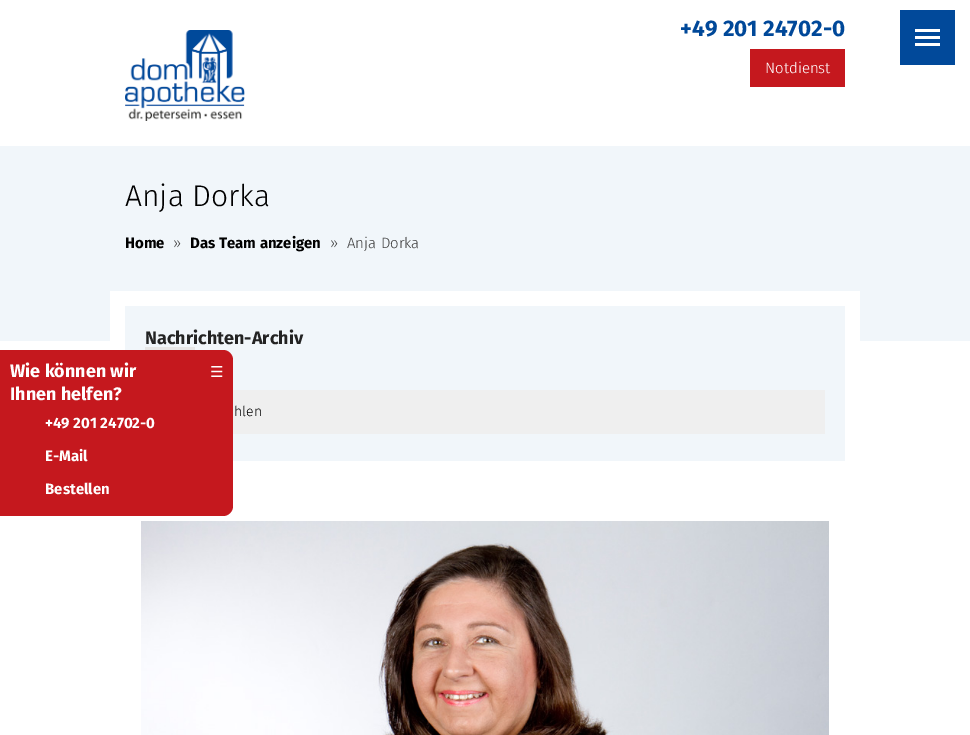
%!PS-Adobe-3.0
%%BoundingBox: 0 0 970 735
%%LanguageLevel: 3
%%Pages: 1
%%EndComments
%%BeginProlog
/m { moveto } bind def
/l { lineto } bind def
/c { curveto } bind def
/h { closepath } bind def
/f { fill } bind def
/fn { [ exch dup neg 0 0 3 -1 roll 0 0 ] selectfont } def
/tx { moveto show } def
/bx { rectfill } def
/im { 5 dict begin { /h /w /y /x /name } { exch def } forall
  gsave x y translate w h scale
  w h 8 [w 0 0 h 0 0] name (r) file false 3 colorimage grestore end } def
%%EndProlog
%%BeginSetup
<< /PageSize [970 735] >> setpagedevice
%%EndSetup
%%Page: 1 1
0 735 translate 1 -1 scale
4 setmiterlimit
1 setgray
0 0 970 735 bx
(image0.raw) 125 30 120 91 im
/FiraSans-Bold 22.5 fn
0 0.282 0.6 setrgbcolor
(+49 201 24702-0) 680 36 tx
0.773 0.094 0.118 setrgbcolor
750 49 95 38 bx
/FiraSans-Light 15 fn
1 setgray
(Notdienst) 765 73 tx
0.004 0.286 0.604 setrgbcolor
900 10 55 55 bx
1 setgray
915 29 25 3 bx
915 36 25 3 bx
915 43 25 3 bx
0.945 0.965 0.98 setrgbcolor
0 146 970 195 bx
/FiraSans-Light 30 fn
0 setgray
(Anja Dorka) 125 206 tx
/FiraSans-Bold 15 fn
(Home) 125 248 tx
/FiraSans-Light 15 fn
0.259 setgray
(») 173 248 tx
/FiraSans-Bold 15 fn
0 setgray
(Das Team anzeigen) 190 248 tx
/FiraSans-Light 15 fn
0.259 setgray
(») 330 248 tx
(Anja Dorka) 347 248 tx
1 setgray
110 291 750 50 bx
0.945 0.965 0.98 setrgbcolor
125 306 720 155 bx
0.773 0.094 0.118 setrgbcolor
0 350 200 166 bx
/FiraSans-Bold 18 fn
1 setgray
(Wie können wir) 10 377 tx
(Ihnen helfen?) 10 400 tx
0.773 0.094 0.118 setrgbcolor
200 350 m 223 350 l 228.5 350 233 354.5 233 360 c 233 506 l 233 511.5 228.5 516 223 516 c 200 516 l h f
/DejaVuSans-Regular 15 fn
1 setgray
(☰) 210 377 tx
/FiraSans-Bold 15 fn
(+49 201 24702-0) 45 428 tx
(E-Mail) 45 461 tx
(Bestellen) 45 494 tx
/FiraSans-Bold 18 fn
0.137 setgray
(Nachrichten-Archiv) 145 344 tx
0.902 setgray
145 347 50 3 bx
0.937 setgray
233 390 592 44 bx
/FiraSans-Light 14 fn
0 setgray
(hlen) 234 416 tx
(image1.raw) 141 521 688 214 im
showpage
%%EOF
